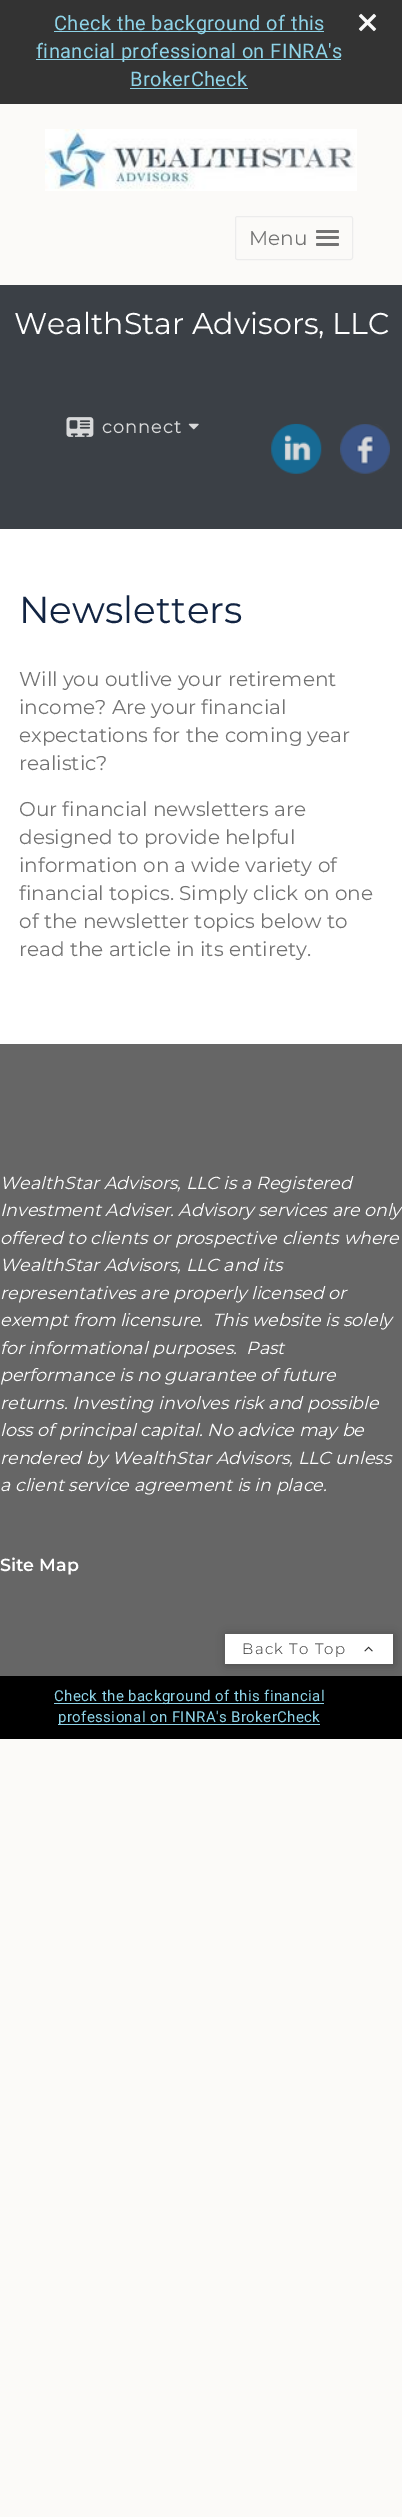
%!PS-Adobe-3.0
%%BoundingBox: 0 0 402 2517
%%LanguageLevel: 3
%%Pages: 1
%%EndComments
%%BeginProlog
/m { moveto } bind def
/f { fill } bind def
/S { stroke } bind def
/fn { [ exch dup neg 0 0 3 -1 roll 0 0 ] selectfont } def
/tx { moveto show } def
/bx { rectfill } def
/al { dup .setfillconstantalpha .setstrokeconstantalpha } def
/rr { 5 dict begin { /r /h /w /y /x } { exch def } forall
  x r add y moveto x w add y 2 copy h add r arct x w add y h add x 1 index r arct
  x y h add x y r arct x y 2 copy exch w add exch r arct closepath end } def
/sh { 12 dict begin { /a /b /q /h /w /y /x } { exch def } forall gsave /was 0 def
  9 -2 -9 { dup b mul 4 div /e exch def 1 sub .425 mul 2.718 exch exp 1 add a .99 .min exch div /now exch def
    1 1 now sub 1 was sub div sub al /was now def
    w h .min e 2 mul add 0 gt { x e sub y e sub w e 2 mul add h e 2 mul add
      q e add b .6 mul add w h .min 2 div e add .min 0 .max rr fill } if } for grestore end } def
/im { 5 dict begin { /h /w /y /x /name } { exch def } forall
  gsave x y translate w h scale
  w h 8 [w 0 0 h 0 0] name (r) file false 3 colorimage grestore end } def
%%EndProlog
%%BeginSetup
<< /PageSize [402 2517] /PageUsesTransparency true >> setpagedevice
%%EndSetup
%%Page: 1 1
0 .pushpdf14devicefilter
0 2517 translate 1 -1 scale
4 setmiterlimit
0.984 0.98 0.973 setrgbcolor
0 0 402 2517 bx
0.2 setgray
0 0 402 104 bx
0.557 0.827 0.906 setrgbcolor
54 31 270 1 bx
/Roboto-Regular 20 fn
54 30 m 0.4 0 (Check the background of this) ashow
(image0.raw) 358 13 19 19 im
36 59 305 1 bx
36 58 m 0.4 0 (financial professional on FINRA's) ashow
130 86 m 0.4 0 (BrokerCheck) ashow
130 88 118 1 bx
(image1.raw) 45 129 312 62 im
0.925 setgray
235.5 216.5 117 43 2 rr S
/Montserrat-Regular 20 fn
0.451 setgray
(Menu) 249 245 tx
316 230 23 3 1.5 rr f
316 236 23 3 1.5 rr f
316 243 23 3 1.5 rr f
0.231 0.251 0.275 setrgbcolor
0 285 402 244 bx
/Montserrat-Regular 30 fn
1 setgray
(WealthStar Advisors, LLC) 14 334 tx
(image2.raw) 66 417 28 20 im
/Montserrat-Bold 17.5 fn
0.847 0.851 0.855 setrgbcolor
102 433 m 1.25 0 (connect) ashow
(image3.raw) 188 423 11 7 im
(image4.raw) 271 423 51 51 im
(image5.raw) 340 424 50 50 im
1 setgray
0 529 402 515 bx
/Montserrat-Regular 37.5 fn
0.071 0.141 0.259 setrgbcolor
(Newsletters) 19 623 tx
/Montserrat-Regular 20 fn
0.451 setgray
(Will you outlive your retirement) 19 686 tx
(income? Are your financial) 19 714 tx
(expectations for the coming year) 19 742 tx
(realistic?) 19 770 tx
(Our financial newsletters are) 19 816 tx
(designed to provide helpful) 19 844 tx
(information on a wide variety of) 19 872 tx
(financial topics. Simply click on one) 19 900 tx
(of the newsletter topics below to) 19 928 tx
(read the article in its entirety.) 19 956 tx
0.4 setgray
0 1044 402 632 bx
/Montserrat-Italic 17.5 fn
1 setgray
(WealthStar Advisors, LLC is a Registered) 0 1189 tx
(Investment Adviser. Advisory services are only) 0 1216 tx
(offered to clients or prospective clients where) 0 1244 tx
(WealthStar Advisors, LLC and its) 0 1271 tx
(representatives are properly licensed or) 0 1299 tx
(exempt from licensure.  This website is solely) 0 1326 tx
(for informational purposes.  Past) 0 1354 tx
(performance is no guarantee of future) 0 1381 tx
(returns. Investing involves risk and possible) 0 1409 tx
(loss of principal capital. No advice may be) 0 1436 tx
(rendered by WealthStar Advisors, LLC unless) 0 1464 tx
(a client service agreement is in place.) 0 1491 tx
/Montserrat-SemiBold 17.5 fn
(Site Map) 0 1571 tx
0 setgray
226 1635 168 30 0 5 0.25 sh
1 setgray
225 1634 168 30 bx
/Montserrat-Light 15 fn
0.184 setgray
242 1654 m 1.25 0 (Back To Top) ashow
(image6.raw) 364 1646 9 6 im
0 setgray
0 1676 402 63 bx
0.557 0.827 0.906 setrgbcolor
54 1703 270 1 bx
/Roboto-Regular 15 fn
54 1701 m 0.4 0 (Check the background of this financial) ashow
58 1724 262 1 bx
58 1722 m 0.4 0 (professional on FINRA's BrokerCheck) ashow
.poppdf14devicefilter showpage
%%EOF
